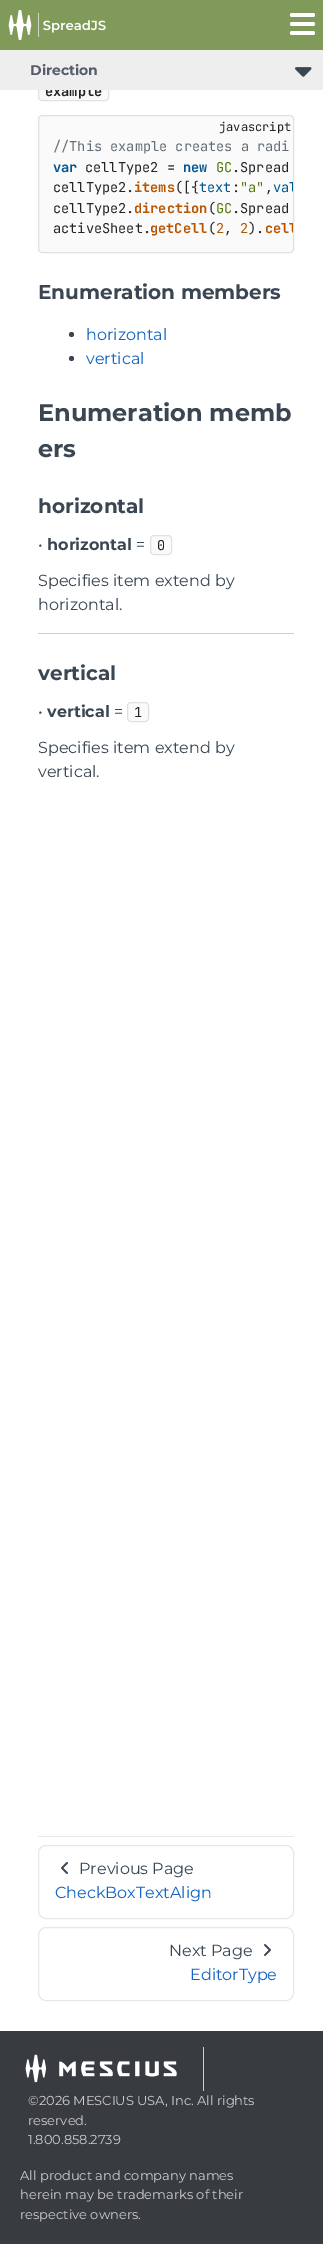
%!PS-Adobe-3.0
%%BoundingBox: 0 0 323 2244
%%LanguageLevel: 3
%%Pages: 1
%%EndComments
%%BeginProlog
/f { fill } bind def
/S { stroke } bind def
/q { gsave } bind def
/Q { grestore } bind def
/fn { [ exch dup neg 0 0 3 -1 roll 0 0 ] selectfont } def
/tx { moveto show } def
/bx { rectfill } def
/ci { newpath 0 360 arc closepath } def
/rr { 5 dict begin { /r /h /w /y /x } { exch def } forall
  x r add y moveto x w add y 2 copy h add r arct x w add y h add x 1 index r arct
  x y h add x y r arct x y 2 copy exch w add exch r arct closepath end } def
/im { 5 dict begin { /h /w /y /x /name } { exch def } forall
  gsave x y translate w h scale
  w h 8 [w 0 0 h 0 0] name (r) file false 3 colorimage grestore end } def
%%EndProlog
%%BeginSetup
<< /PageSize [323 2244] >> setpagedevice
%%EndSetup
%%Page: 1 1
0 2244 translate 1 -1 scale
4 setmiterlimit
1 setgray
0 0 323 2244 bx
0.502 0.608 0.349 setrgbcolor
0 0 323 50 bx
(image0.raw) 8 10 24 30 im
0.8 0.843 0.741 setrgbcolor
38 13 1 24 bx
(image1.raw) 43 20 63 13 im
1 setgray
290 13 25 4 2 rr f
290 22 25 4 2 rr f
290 31 25 4 2 rr f
0.98 setgray
38.5 81.5 70 19 3.5 rr q f Q
0.871 0.886 0.902 setrgbcolor
S
/JetBrainsMono-Bold 13.6 fn
0.129 0.145 0.161 setrgbcolor
(example) 45 96 tx
0.933 setgray
0 50 323 40 bx
/Montserrat-Bold 14 fn
0.325 0.361 0.404 setrgbcolor
(Direction) 30 75 tx
(image2.raw) 295 67 17 10 im
0.98 setgray
38.5 115.5 255 137 3.5 rr q f Q
0.871 0.886 0.902 setrgbcolor
S
/JetBrainsMono-Regular 12 fn
0.129 0.145 0.161 setrgbcolor
(javascript) 219 131 tx
/JetBrainsMono-Regular 13.6 fn
0.396 0.431 0.467 setrgbcolor
(//This example creates a radi) 53 151 tx
/JetBrainsMono-Bold 13.6 fn
0.004 0.337 0.573 setrgbcolor
(var) 53 172 tx
/JetBrainsMono-Regular 13.6 fn
0.129 0.145 0.161 setrgbcolor
(cellType2 =) 85 172 tx
/JetBrainsMono-Bold 13.6 fn
0.004 0.337 0.573 setrgbcolor
(new) 183 172 tx
/JetBrainsMono-Regular 13.6 fn
0.329 0.475 0.051 setrgbcolor
(GC) 216 172 tx
0.129 0.145 0.161 setrgbcolor
(.Spread) 232 172 tx
(cellType2.) 53 192 tx
/JetBrainsMono-Bold 13.6 fn
0.718 0.333 0.004 setrgbcolor
(items) 134 192 tx
/JetBrainsMono-Regular 13.6 fn
0.129 0.145 0.161 setrgbcolor
(\([{) 175 192 tx
0.004 0.337 0.573 setrgbcolor
(text) 199 192 tx
0.129 0.145 0.161 setrgbcolor
(:) 232 192 tx
0.329 0.475 0.051 setrgbcolor
("a") 240 192 tx
0.129 0.145 0.161 setrgbcolor
(,) 265 192 tx
q
39 116 254 136 3 rr clip newpath
0.004 0.337 0.573 setrgbcolor
(val) 273 192 tx
Q
(cellType2.) 53 213 tx
/JetBrainsMono-Bold 13.6 fn
0.718 0.333 0.004 setrgbcolor
(direction) 134 213 tx
/JetBrainsMono-Regular 13.6 fn
0.129 0.145 0.161 setrgbcolor
(\() 208 213 tx
0.329 0.475 0.051 setrgbcolor
(GC) 216 213 tx
0.129 0.145 0.161 setrgbcolor
(.Spread) 232 213 tx
(activeSheet.) 53 233 tx
/JetBrainsMono-Bold 13.6 fn
0.718 0.333 0.004 setrgbcolor
(getCell) 150 233 tx
/JetBrainsMono-Regular 13.6 fn
0.129 0.145 0.161 setrgbcolor
(\( ,) 208 233 tx
(\).) 248 233 tx
0.718 0.333 0.004 setrgbcolor
(2) 216 233 tx
(2) 240 233 tx
q
39 116 254 136 3 rr clip newpath
/JetBrainsMono-Bold 13.6 fn
(cell) 265 233 tx
Q
/Montserrat-Bold 20 fn
0.227 0.275 0.322 setrgbcolor
(Enumeration members) 38 299 tx
71.5 334.5 2.5 ci f
/Montserrat-Regular 16 fn
0.075 0.392 0.769 setrgbcolor
(horizontal) 86 340 tx
0.227 0.275 0.322 setrgbcolor
71.5 358.5 2.5 ci f
0.075 0.392 0.769 setrgbcolor
(vertical) 86 364 tx
/Montserrat-Bold 24 fn
0.227 0.275 0.322 setrgbcolor
(Enumeration memb) 38 421 tx
(ers) 38 457 tx
/Montserrat-Bold 20 fn
(horizontal) 38 513 tx
/Montserrat-Regular 16 fn
(•) 38 550 tx
/Montserrat-Bold 16 fn
(horizontal) 47 550 tx
/Montserrat-Regular 16 fn
(=) 136 550 tx
0.98 setgray
150.5 535.5 21 19 3.5 rr q f Q
0.871 0.886 0.902 setrgbcolor
S
/JetBrainsMono-Regular 13.6 fn
0.129 0.145 0.161 setrgbcolor
(0) 157 550 tx
/Montserrat-Regular 16 fn
0.227 0.275 0.322 setrgbcolor
(Specifies item extend by) 38 586 tx
(horizontal.) 38 610 tx
0.808 0.82 0.831 setrgbcolor
38 633 256 1 bx
/Montserrat-Bold 20 fn
0.227 0.275 0.322 setrgbcolor
(vertical) 38 680 tx
/Montserrat-Regular 16 fn
(•) 38 717 tx
/Montserrat-Bold 16 fn
(vertical) 47 717 tx
/Montserrat-Regular 16 fn
(=) 114 717 tx
0.98 setgray
127.5 702.5 21 19 3.5 rr q f Q
0.871 0.886 0.902 setrgbcolor
S
/JetBrainsMono-Regular 13.6 fn
0.129 0.145 0.161 setrgbcolor
(1) 134 717 tx
/Montserrat-Regular 16 fn
0.227 0.275 0.322 setrgbcolor
(Specifies item extend by) 38 753 tx
(vertical.) 38 777 tx
0.91 setgray
38 1836 256 1 bx
38.5 1845.5 255 73 7.5 rr S
(image3.raw) 61 1862 7 12 im
0.227 0.275 0.322 setrgbcolor
(Previous Page) 79 1874 tx
0.075 0.392 0.769 setrgbcolor
(CheckBoxTextAlign) 55 1898 tx
0.91 setgray
38.5 1927.5 255 73 7.5 rr S
0.227 0.275 0.322 setrgbcolor
(Next Page) 169 1956 tx
(image4.raw) 264 1944 7 12 im
0.075 0.392 0.769 setrgbcolor
(EditorType) 190 1980 tx
0.22 0.235 0.255 setrgbcolor
0 2031 323 213 bx
0.804 0.808 0.816 setrgbcolor
203 2047 1 44 bx
(image5.raw) 25 2054 152 29 im
/Montserrat-Regular 13 fn
(©2026 MESCIUS USA, Inc. All rights) 28 2105 tx
(reserved.) 28 2125 tx
(1.800.858.2739) 28 2144 tx
(All product and company names) 20 2180 tx
(herein may be trademarks of their) 20 2199 tx
(respective owners.) 20 2219 tx
showpage
%%EOF
